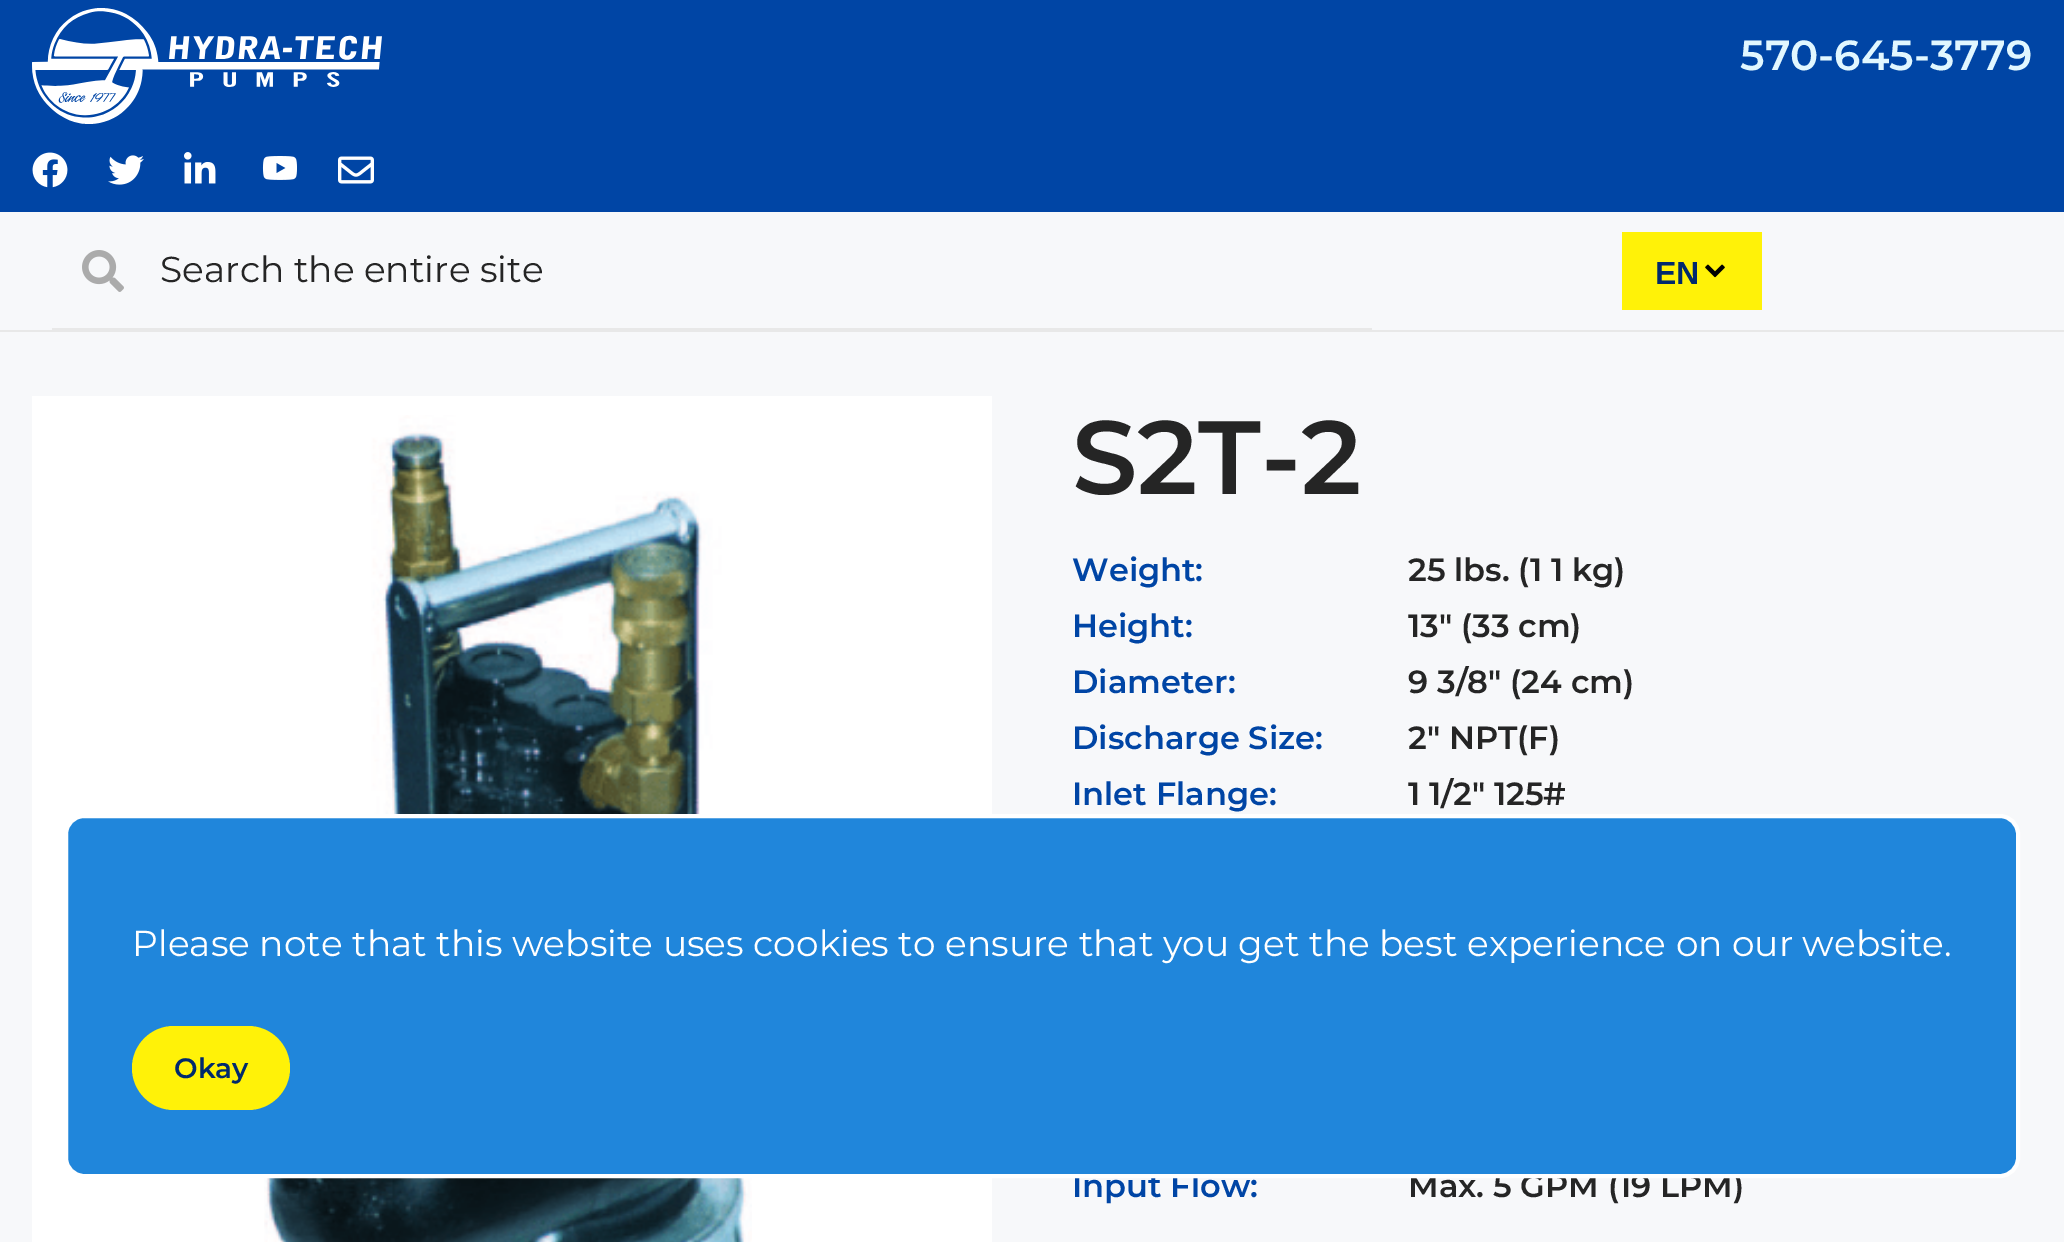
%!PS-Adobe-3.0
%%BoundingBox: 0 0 2064 1242
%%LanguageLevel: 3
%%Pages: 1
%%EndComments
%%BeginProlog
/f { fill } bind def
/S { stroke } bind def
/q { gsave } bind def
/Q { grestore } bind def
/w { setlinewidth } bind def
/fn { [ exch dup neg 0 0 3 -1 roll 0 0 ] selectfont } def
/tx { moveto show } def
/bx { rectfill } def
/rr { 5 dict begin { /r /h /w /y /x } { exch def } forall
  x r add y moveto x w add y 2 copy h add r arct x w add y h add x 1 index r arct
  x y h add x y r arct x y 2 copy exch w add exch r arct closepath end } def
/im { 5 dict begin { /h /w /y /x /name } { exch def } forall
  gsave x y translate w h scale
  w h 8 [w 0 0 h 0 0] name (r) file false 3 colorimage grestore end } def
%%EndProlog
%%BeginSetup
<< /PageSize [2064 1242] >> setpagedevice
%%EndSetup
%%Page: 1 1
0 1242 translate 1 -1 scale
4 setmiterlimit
0.969 0.973 0.98 setrgbcolor
0 0 2064 1242 bx
0 0.271 0.647 setrgbcolor
0 0 2064 212 bx
(image0.raw) 32 8 350 116 im
(image1.raw) 32 152 36 36 im
(image2.raw) 108 155 36 30 im
(image3.raw) 184 152 32 32 im
(image4.raw) 262 156 35 24 im
(image5.raw) 338 156 36 28 im
/Montserrat-SemiBold 42 fn
0.882 0.969 1 setrgbcolor
(570-645-3779) 1740 70 tx
0.91 setgray
0 330 2064 2 bx
(image6.raw) 82 250 42 42 im
52 328 1320 2 bx
/Montserrat-Regular 36 fn
0.145 setgray
(Search the entire site) 160 282 tx
1 0.949 0.031 setrgbcolor
1622 232 140 78 bx
/LiberationSans-Bold 32 fn
0 0.161 0.427 setrgbcolor
(EN) 1655 284 tx
(image7.raw) 1705 264 20 14 im
1 setgray
32 396 960 846 bx
(image8.raw) 264 415 488 827 im
/Montserrat-SemiBold 104 fn
0.145 setgray
(S2T-2) 1072 494 tx
/Montserrat-SemiBold 32 fn
0 0.271 0.647 setrgbcolor
(Weight:) 1072 581 tx
0.145 setgray
(25 lbs. \(1 1 kg\)) 1408 581 tx
0 0.271 0.647 setrgbcolor
(Height:) 1072 637 tx
0.145 setgray
(13" \(33 cm\)) 1408 637 tx
0 0.271 0.647 setrgbcolor
(Diameter:) 1072 693 tx
0.145 setgray
(9 3/8" \(24 cm\)) 1408 693 tx
0 0.271 0.647 setrgbcolor
(Discharge Size:) 1072 749 tx
0.145 setgray
(2" NPT\(F\)) 1408 749 tx
0 0.271 0.647 setrgbcolor
(Inlet Flange:) 1072 805 tx
0.145 setgray
(1 1/2" 125#) 1408 805 tx
0 0.271 0.647 setrgbcolor
(Input Flow:) 1072 1197 tx
0.145 setgray
(Max. 5 GPM \(19 LPM\)) 1408 1197 tx
0.125 0.525 0.859 setrgbcolor
66 816 1952 360 18 rr q f Q
1 setgray
4 w
S
/Montserrat-Regular 36 fn
(Please note that this website uses cookies to ensure that you get the best experience on our website.) 132 956 tx
1 0.949 0.031 setrgbcolor
132 1026 158 84 42 rr f
/Montserrat-SemiBold 28 fn
0 0.161 0.427 setrgbcolor
(Okay) 174 1078 tx
showpage
%%EOF
